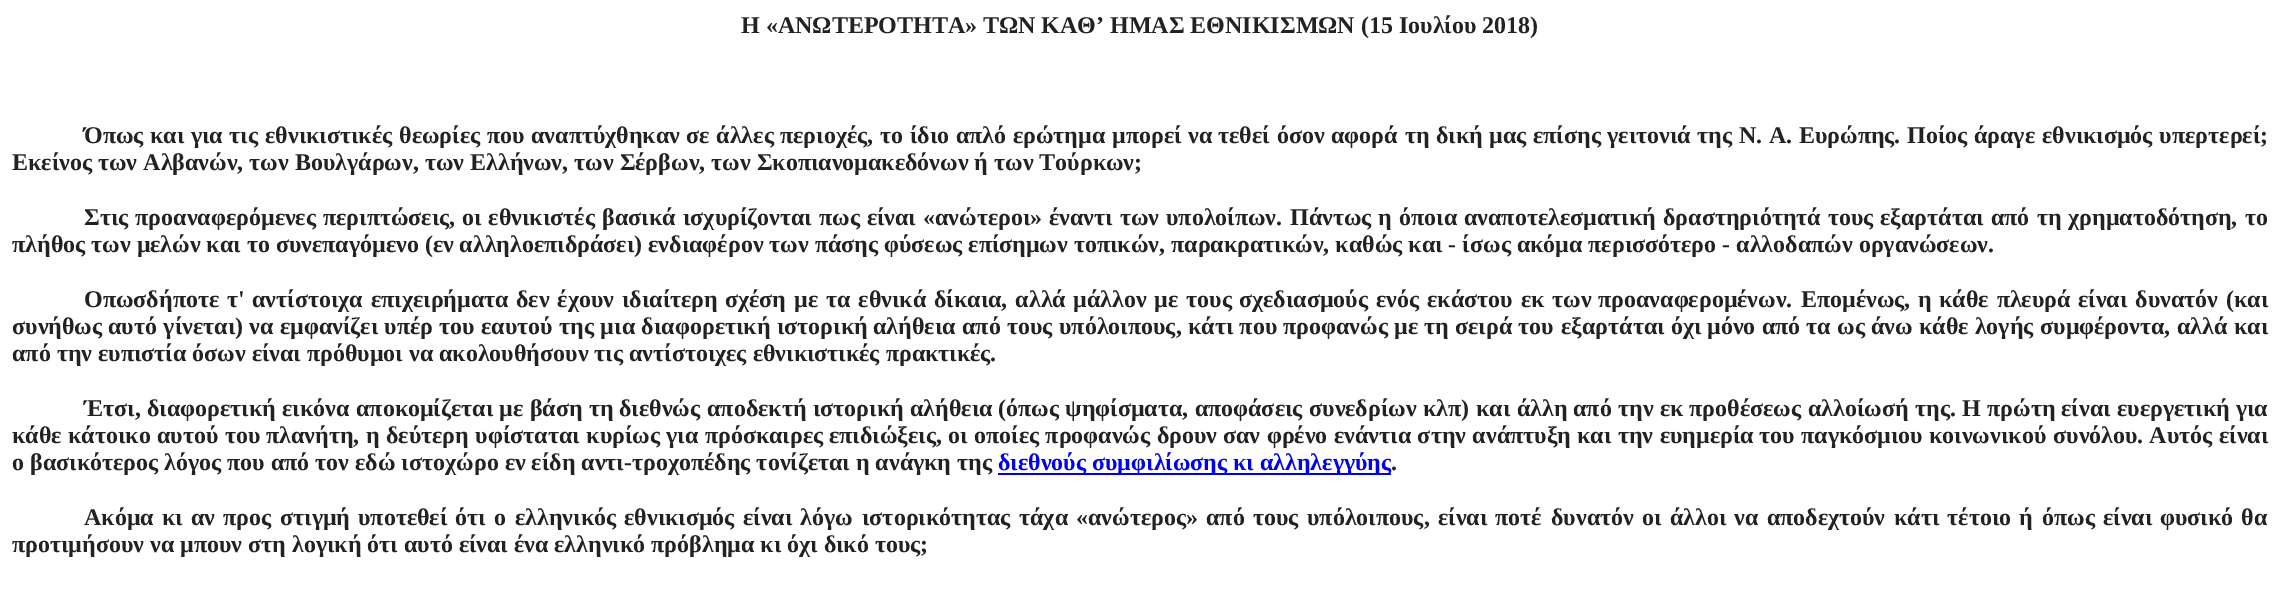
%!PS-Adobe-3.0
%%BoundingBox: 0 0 2280 595
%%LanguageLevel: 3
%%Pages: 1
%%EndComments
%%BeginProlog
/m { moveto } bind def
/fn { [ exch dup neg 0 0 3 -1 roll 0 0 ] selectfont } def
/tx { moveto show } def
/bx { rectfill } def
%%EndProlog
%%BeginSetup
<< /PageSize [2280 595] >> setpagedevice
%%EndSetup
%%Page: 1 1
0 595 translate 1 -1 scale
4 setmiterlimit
1 setgray
0 0 2280 595 bx
/LiberationSerif-Bold 24 fn
0.133 setgray
(Η «ΑΝΩΤΕΡΟΤΗΤΑ» ΤΩΝ ΚΑΘ’ ΗΜΑΣ ΕΘΝΙΚΙΣΜΩΝ \(15 Ιουλίου 2018\)) 741 33 tx
(Όπως) 84 143 tx
150 143 m 0.5 0 32 (και για τις) widthshow
(εθνικιστικές) 265 143 tx
399 143 m 1 0 32 (θεωρίες που) widthshow
(αναπτύχθηκαν) 531 143 tx
686 143 m 1 0 32 (σε άλλες) widthshow
780 143 m 1 0 32 (περιοχές, το) widthshow
910 143 m 0.5 0 32 (ίδιο απλό ερώτημα) widthshow
1112 143 m 1 0 32 (μπορεί να) widthshow
1218 143 m 1 0 32 (τεθεί όσον) widthshow
1331 143 m 1 0 32 (αφορά τη) widthshow
1436 143 m 0.5 0 32 (δική μας) widthshow
1533 143 m 0.5 0 32 (επίσης γειτονιά της) widthshow
1739 143 m 0.5 0 32 (Ν. Α. Ευρώπης. Ποίος άραγε) widthshow
2042 143 m 1 0 32 (εθνικισμός υπερτερεί;) widthshow
(Εκείνος των Αλβανών, των Βουλγάρων, των Ελλήνων, των Σέρβων, των Σκοπιανομακεδόνων ή των Τούρκων;) 12 170 tx
84 225 m 1 0 32 (Στις προαναφερόμενες) widthshow
(περιπτώσεις,) 323 225 tx
462 225 m 1 0 32 (οι εθνικιστές) widthshow
(βασικά) 602 225 tx
683 225 m 1 0 32 (ισχυρίζονται πως είναι «ανώτεροι) widthshow
(») 1030 225 tx
1049 225 m 1 0 32 (έναντι των υπολοίπων.) widthshow
(Πάντως) 1290 225 tx
(η) 1378 225 tx
1399 225 m 1 0 32 (όποια αναποτελεσματική) widthshow
1663 225 m 1 0 32 (δραστηριότητά τους) widthshow
1880 225 m 1 0 32 (εξαρτάται από) widthshow
(τη) 2037 225 tx
(χρηματοδότηση,) 2068 225 tx
(το) 2245 225 tx
(πλήθος των μελών και το συνεπαγόμενο \(εν αλληλοεπιδράσει\) ενδιαφέρον των πάσης φύσεως επίσημων τοπικών, παρακρατικών, καθώς και - ίσως ακόμα περισσότερο - αλλοδαπών οργανώσεων.) 12 252 tx
84 307 m 2 0 32 (Οπωσδήποτε τ') widthshow
(αντίστοιχα) 252 307 tx
(επιχειρήματα) 371 307 tx
516 307 m 2 0 32 (δεν έχουν) widthshow
(ιδιαίτερη) 622 307 tx
(σχέση) 725 307 tx
794 307 m 2 0 32 (με τα εθνικά) widthshow
934 307 m 2 0 32 (δίκαια, αλλά) widthshow
1073 307 m 2 0 32 (μάλλον με τους) widthshow
1239 307 m 2 0 32 (σχεδιασμούς ενός) widthshow
1427 307 m 2 0 32 (εκάστου εκ των) widthshow
(προαναφερομένων.) 1598 307 tx
1801 307 m 2 0 32 (Επομένως, η) widthshow
1939 307 m 2 0 32 (κάθε πλευρά) widthshow
2078 307 m 2 0 32 (είναι δυνατόν) widthshow
(\(και) 2226 307 tx
(συνήθως) 12 334 tx
108 334 m 0.5 0 32 (αυτό γίνεται\) να) widthshow
280 334 m 0.25 0 32 (εμφανίζει υπέρ) widthshow
439 334 m 0.5 0 32 (του εαυτού της μια διαφορετική ιστορική) widthshow
(αλήθεια) 873 334 tx
962 334 m 0.25 0 32 (από τους) widthshow
(υπόλοιπους,) 1059 334 tx
1188 334 m 0.25 0 32 (κάτι που) widthshow
1283 334 m 0.25 0 32 (προφανώς με τη) widthshow
1455 334 m 0.25 0 32 (σειρά του) widthshow
1561 334 m 0.25 0 32 (εξαρτάται όχι) widthshow
1707 334 m 0.25 0 32 (μόνο από τα ως άνω κάθε λογής) widthshow
2040 334 m 0.5 0 32 (συμφέροντα, αλλά) widthshow
(και) 2234 334 tx
(από την ευπιστία όσων είναι πρόθυμοι να ακολουθήσουν τις αντίστοιχες εθνικιστικές πρακτικές.) 12 361 tx
(Έτσι,) 84 416 tx
(διαφορετική) 147 416 tx
(εικόνα) 282 416 tx
356 416 m 0.5 0 32 (αποκομίζεται με βάση τη) widthshow
(διεθνώς) 619 416 tx
707 416 m 0.5 0 32 (αποδεκτή ιστορική αλήθεια) widthshow
(\(όπως) 998 416 tx
1 setgray
1059 415 1 7 bx
0.133 setgray
1065 416 m 0.5 0 32 (ψηφίσματα, αποφάσεις) widthshow
(συνεδρίων) 1309 416 tx
(κλπ\)) 1423 416 tx
1476 416 m 0.5 0 32 (και άλλη) widthshow
1573 416 m 0.5 0 32 (από την εκ) widthshow
(προθέσεως) 1689 416 tx
1808 416 m 0.5 0 32 (αλλοίωσή της. Η) widthshow
(πρώτη είναι) 1987 416 tx
(ευεργετική για) 2117 416 tx
12 443 m 0.5 0 32 (κάθε κάτοικο) widthshow
157 443 m 0.5 0 32 (αυτού του) widthshow
266 443 m 0.5 0 32 (πλανήτη, η) widthshow
386 443 m 0.5 0 32 (δεύτερη υφίσταται κυρίως) widthshow
666 443 m 0.5 0 32 (για πρόσκαιρες) widthshow
(επιδιώξεις,) 829 443 tx
948 443 m 0.5 0 32 (οι οποίες προφανώς δρουν) widthshow
1223 443 m 0.5 0 32 (σαν φρένο) widthshow
1334 443 m 0.5 0 32 (ενάντια στην ανάπτυξη) widthshow
1577 443 m 0.5 0 32 (και την ευημερία) widthshow
(του) 1759 443 tx
(παγκόσμιoυ) 1801 443 tx
(κοινωνικού) 1929 443 tx
(συνόλου. Αυτός) 2053 443 tx
(είναι) 2219 443 tx
(ο βασικότερος λόγος που από τον εδώ ιστοχώρο εν είδη αντι-τροχοπέδης τονίζεται η ανάγκη της) 12 470 tx
0 0 0.933 setrgbcolor
998 473 393 2 bx
(διεθνούς συμφιλίωσης κι αλληλεγγύης) 998 470 tx
0.133 setgray
(.) 1391 470 tx
(Ακόμα) 84 525 tx
162 525 m 2 0 32 (κι αν προς) widthshow
(στιγμή) 280 525 tx
358 525 m 2 0 32 (υποτεθεί ότι ο) widthshow
515 525 m 2 0 32 (ελληνικός εθνικισμός) widthshow
743 525 m 2 0 32 (είναι λόγω) widthshow
(ιστορικότητας) 862 525 tx
1019 525 m 2 0 32 (τάχα «ανώτερος») widthshow
1206 525 m 2 0 32 (από τους) widthshow
(υπόλοιπους,) 1307 525 tx
1438 525 m 2 0 32 (είναι ποτέ) widthshow
1551 525 m 2 0 32 (δυνατόν οι) widthshow
1670 525 m 2 0 32 (άλλοι να αποδεχτούν) widthshow
1894 525 m 2 0 32 (κάτι τέτοιο ή) widthshow
2042 525 m 2 0 32 (όπως είναι) widthshow
2160 525 m 2 0 32 (φυσικό θα) widthshow
(προτιμήσουν να μπουν στη λογική ότι αυτό είναι ένα ελληνικό πρόβλημα κι όχι δικό τους;) 12 552 tx
showpage
%%EOF
